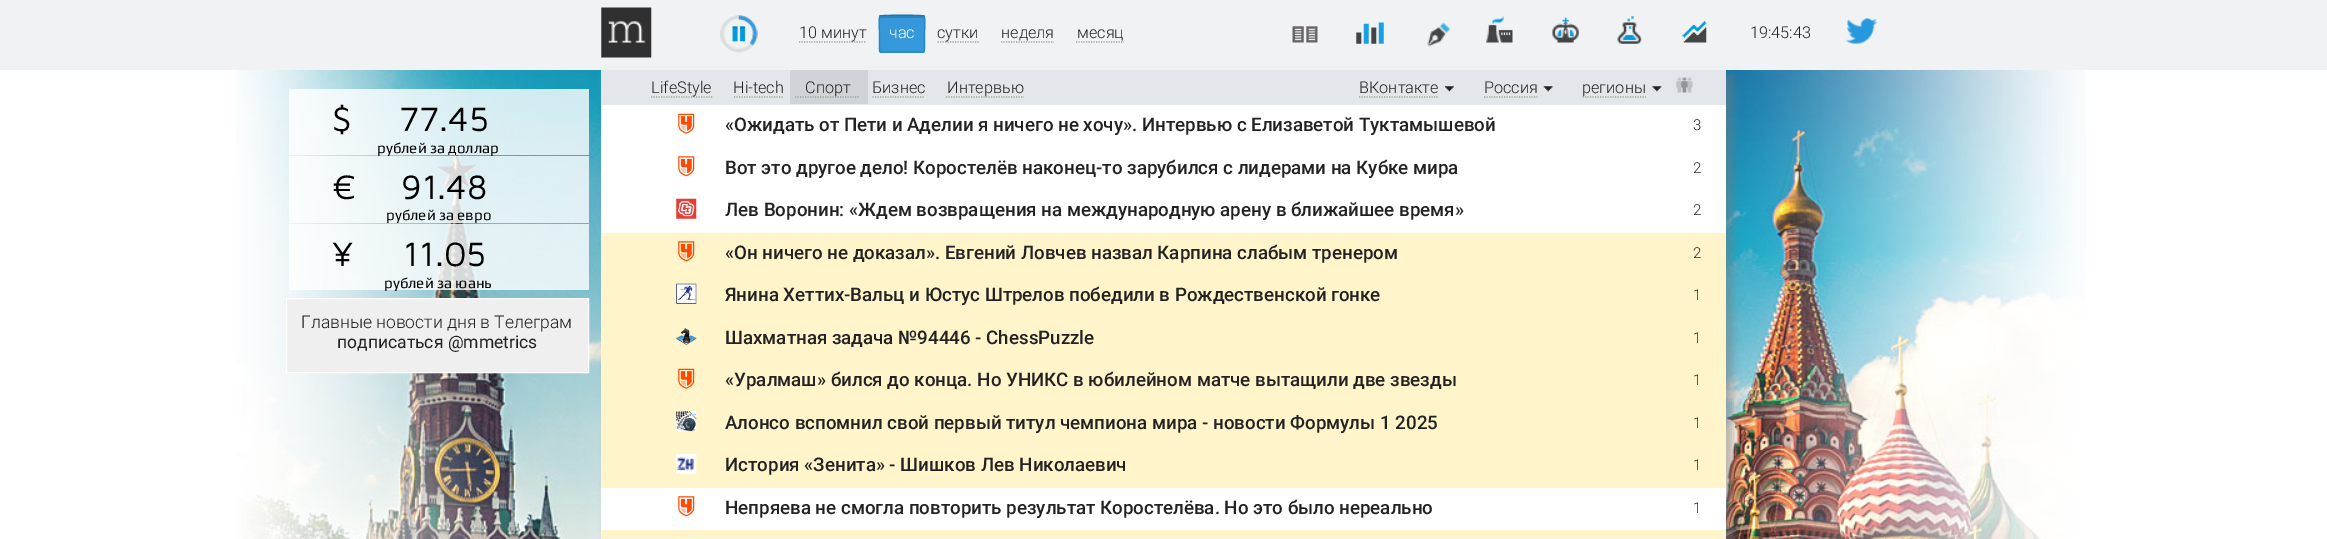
%!PS-Adobe-3.0
%%BoundingBox: 0 0 2327 539
%%LanguageLevel: 3
%%Pages: 1
%%EndComments
%%BeginProlog
/m { moveto } bind def
/l { lineto } bind def
/c { curveto } bind def
/h { closepath } bind def
/f { fill } bind def
/S { stroke } bind def
/q { gsave } bind def
/Q { grestore } bind def
/w { setlinewidth } bind def
/fn { [ exch dup neg 0 0 3 -1 roll 0 0 ] selectfont } def
/tx { moveto show } def
/bx { rectfill } def
/al { dup .setfillconstantalpha .setstrokeconstantalpha } def
/rr { 5 dict begin { /r /h /w /y /x } { exch def } forall
  x r add y moveto x w add y 2 copy h add r arct x w add y h add x 1 index r arct
  x y h add x y r arct x y 2 copy exch w add exch r arct closepath end } def
/sh { 12 dict begin { /a /b /q /h /w /y /x } { exch def } forall gsave /was 0 def
  9 -2 -9 { dup b mul 4 div /e exch def 1 sub .425 mul 2.718 exch exp 1 add a .99 .min exch div /now exch def
    1 1 now sub 1 was sub div sub al /was now def
    w h .min e 2 mul add 0 gt { x e sub y e sub w e 2 mul add h e 2 mul add
      q e add b .6 mul add w h .min 2 div e add .min 0 .max rr fill } if } for grestore end } def
/im { 5 dict begin { /h /w /y /x /name } { exch def } forall
  gsave x y translate w h scale
  w h 8 [w 0 0 h 0 0] name (r) file false 3 colorimage grestore end } def
%%EndProlog
%%BeginSetup
<< /PageSize [2327 539] /PageUsesTransparency true >> setpagedevice
%%EndSetup
%%Page: 1 1
0 .pushpdf14devicefilter
0 539 translate 1 -1 scale
4 setmiterlimit
1 setgray
0 0 2327 539 bx
(image0.raw) 236 70 1850 469 im
0.941 0.949 0.957 setrgbcolor
0 0 2327 70 bx
0.478 setgray
608 76 1125 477 0 4.5 0.5 sh
0.941 0.949 0.957 setrgbcolor
609 68 1123 2 bx
(image1.raw) 601 7 51 51 im
(image2.raw) 720 15 38 38 im
(image3.raw) 738 15 20 31 im
0.624 0.627 0.635 setrgbcolor
1.2 w
[1.25 1.25] 0 setdash
799 42 m 866 42 l S
/Roboto-Light 16.25 fn
0.133 setgray
(10 минут) 799 38 tx
0.204 0.596 0.859 setrgbcolor
879 15 46 38 2.5 rr f
0.176 0.518 0.749 setrgbcolor
881 18 m 922 18 l 923 18 924 18 924 19 c 924 14 922 16 916 16 c 888 16 l 882 16 880 14 880 19 c h f
0.122 0.463 0.694 setrgbcolor
[] 0 setdash
880 16 m 881 15 923 15 924 16 c S
0.141 0.533 0.796 setrgbcolor
924 16 m 925.5 17.5 924.5 31 924.5 34 c 924.5 44.5 l 924.5 53.5 925 52 915.5 52 c 888 52 l 878.5 52 879.5 53.5 879.5 44.5 c 879.5 34 l 879.5 31 878.5 17.5 880 16 c S
1 setgray
(час) 889 38 tx
0.624 0.627 0.635 setrgbcolor
[1.25 1.25] 0 setdash
937.5 42 m 979 42 l S
0.133 setgray
(сутки) 937 38 tx
0.624 0.627 0.635 setrgbcolor
1001 42 m 1054 42 l S
0.133 setgray
(неделя) 1001 38 tx
0.624 0.627 0.635 setrgbcolor
1076 42 m 1124 42 l S
0.133 setgray
(месяц) 1077 38 tx
(image4.raw) 1292 26 26 17 im
(image5.raw) 1356 22 28 22 im
(image6.raw) 1427 22 24 25 im
(image7.raw) 1486 16 27 27 im
(image8.raw) 1551 17 28 26 im
(image9.raw) 1617 16 25 28 im
(image10.raw) 1682 21 25 22 im
(19:45:43) 1750 38 tx
(image11.raw) 1846 18 31 26 im
0.89 0.902 0.918 setrgbcolor
601 70 1125 35 bx
0.624 0.627 0.635 setrgbcolor
651 97 m 712.5 97 l S
0.133 setgray
(LifeStyle) 651 93 tx
0.624 0.627 0.635 setrgbcolor
734 97 m 784 97 l S
0.133 setgray
(Hi-tech) 733 93 tx
0.816 0.831 0.851 setrgbcolor
790 70 78 34 bx
0.624 0.627 0.635 setrgbcolor
795 97 m 860 97 l S
0.133 setgray
(Спорт) 805 93 tx
0.624 0.627 0.635 setrgbcolor
872.5 97 m 925 97 l S
0.133 setgray
(Бизнес) 872 93 tx
0.624 0.627 0.635 setrgbcolor
946 97 m 1024 97 l S
0.133 setgray
(Интервью) 947 93 tx
0.624 0.627 0.635 setrgbcolor
1359 97 m 1439 97 l S
0.133 setgray
(ВКонтакте) 1359 93 tx
(image12.raw) 1445 86 9 6 im
0.624 0.627 0.635 setrgbcolor
1484 97 m 1537.5 97 l S
0.133 setgray
(Россия) 1484 93 tx
(image13.raw) 1543 86 10 6 im
0.624 0.627 0.635 setrgbcolor
1582.5 97 m 1646 97 l S
0.133 setgray
(регионы) 1582 93 tx
(image14.raw) 1652 86 10 6 im
(image15.raw) 1676 77 17 16 im
0.8 al
1 setgray
289 89 300 66 bx
/MavenPro-Regular 35 fn
1 al
0 setgray
($) 332 131 tx
(77.45) 399 131 tx
/Play-Regular 15 fn
(рублей за доллар) 377 153 tx
0.8 al
1 setgray
289 156 300 67 bx
/MavenPro-Regular 35 fn
1 al
0 setgray
(€) 332 199 tx
(91.48) 401 199 tx
/Play-Regular 15 fn
(рублей за евро) 386 220 tx
0.8 al
1 setgray
289 224 300 66 bx
/MavenPro-Regular 35 fn
1 al
0 setgray
(¥) 332 266 tx
(11.05) 403 266 tx
/Play-Regular 15 fn
(рублей за юань) 384 288 tx
0.937 setgray
286.5 298.5 m 588.5 298.5 l 588.5 372.5 l 286.5 372.5 l h q f Q
1 setgray
1 w
[] 0 setdash
S
/Roboto-Light 17.5 fn
0.133 setgray
(Главные новости дня в Телеграм) 301 328 tx
/Roboto-Regular 17.5 fn
(подписаться @mmetrics) 337 348 tx
1 setgray
601 105 1125 425 bx
(image16.raw) 678 113 17 21 im
/Roboto-Medium 18.75 fn
0.133 setgray
(«Ожидать от Пети и Аделии я ничего не хочу». Интервью с Елизаветой Туктамышевой) 725 131 tx
/Roboto-Light 15 fn
(3) 1693 130 tx
(image17.raw) 678 156 17 21 im
/Roboto-Medium 18.75 fn
(Вот это другое дело! Коростелёв наконец-то зарубился с лидерами на Кубке мира) 725 174 tx
/Roboto-Light 15 fn
(2) 1693 173 tx
(image18.raw) 676 198 21 21 im
/Roboto-Medium 18.75 fn
(Лев Воронин: «Ждем возвращения на международную арену в ближайшее время») 725 216 tx
/Roboto-Light 15 fn
(2) 1693 215 tx
1 0.957 0.792 setrgbcolor
601 233 1125 255 bx
(image19.raw) 678 241 17 21 im
/Roboto-Medium 18.75 fn
0.133 setgray
(«Он ничего не доказал». Евгений Ловчев назвал Карпина слабым тренером) 725 259 tx
/Roboto-Light 15 fn
(2) 1693 258 tx
(image20.raw) 676 283 21 21 im
/Roboto-Medium 18.75 fn
(Янина Хеттих-Вальц и Юстус Штрелов победили в Рождественской гонке) 725 301 tx
/Roboto-Light 15 fn
(1) 1693 300 tx
(image21.raw) 676 328 21 18 im
/Roboto-Medium 18.75 fn
(Шахматная задача №94446 - ChessPuzzle) 725 344 tx
/Roboto-Light 15 fn
(1) 1693 343 tx
(image22.raw) 678 368 17 21 im
/Roboto-Medium 18.75 fn
(«Уралмаш» бился до конца. Но УНИКС в юбилейном матче вытащили две звезды) 725 386 tx
/Roboto-Light 15 fn
(1) 1693 385 tx
(image23.raw) 676 411 21 21 im
/Roboto-Medium 18.75 fn
(Алонсо вспомнил свой первый титул чемпиона мира - новости Формулы 1 2025) 725 429 tx
/Roboto-Light 15 fn
(1) 1693 428 tx
(image24.raw) 676 453 21 21 im
/Roboto-Medium 18.75 fn
(История «Зенита» - Шишков Лев Николаевич) 725 471 tx
/Roboto-Light 15 fn
(1) 1693 470 tx
(image17.raw) 678 496 17 21 im
/Roboto-Medium 18.75 fn
(Непряева не смогла повторить результат Коростелёва. Но это было нереально) 725 514 tx
/Roboto-Light 15 fn
(1) 1693 513 tx
1 0.957 0.792 setrgbcolor
601 530 1125 9 bx
(image25.raw) 676 538 20 1 im
.poppdf14devicefilter showpage
%%EOF
